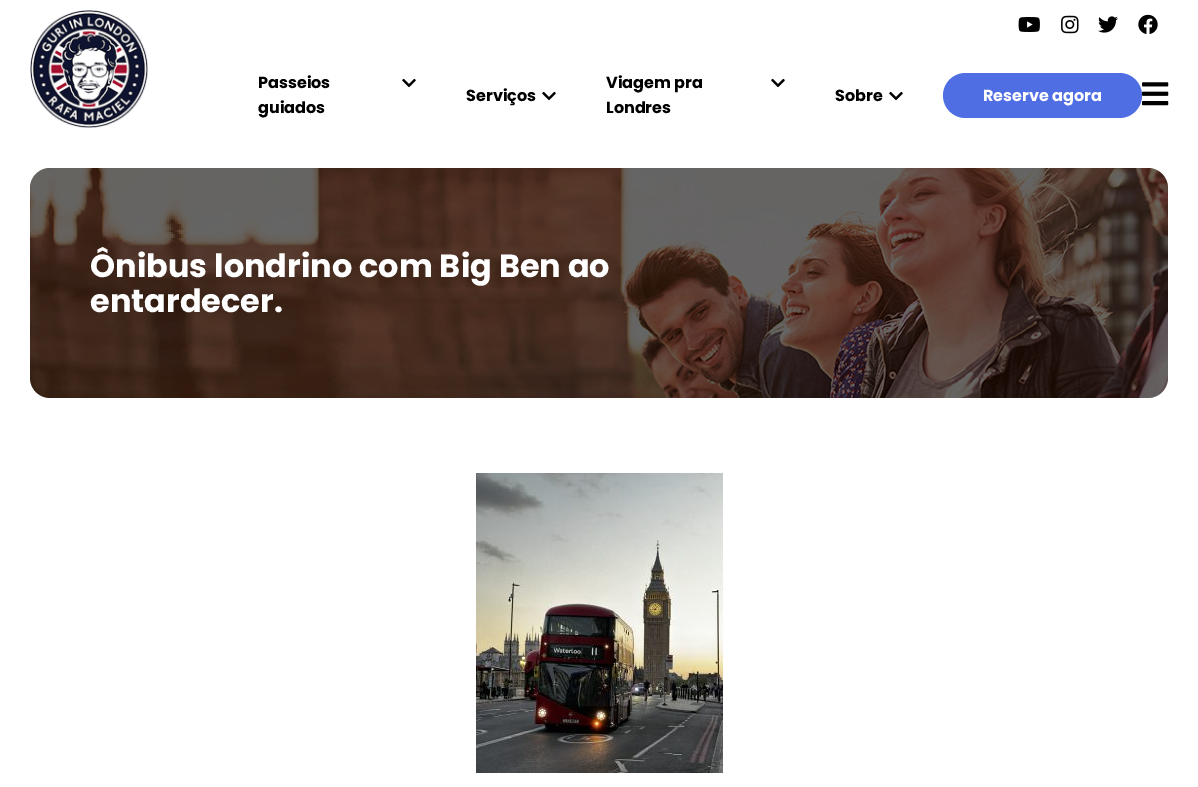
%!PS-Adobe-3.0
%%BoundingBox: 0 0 1198 787
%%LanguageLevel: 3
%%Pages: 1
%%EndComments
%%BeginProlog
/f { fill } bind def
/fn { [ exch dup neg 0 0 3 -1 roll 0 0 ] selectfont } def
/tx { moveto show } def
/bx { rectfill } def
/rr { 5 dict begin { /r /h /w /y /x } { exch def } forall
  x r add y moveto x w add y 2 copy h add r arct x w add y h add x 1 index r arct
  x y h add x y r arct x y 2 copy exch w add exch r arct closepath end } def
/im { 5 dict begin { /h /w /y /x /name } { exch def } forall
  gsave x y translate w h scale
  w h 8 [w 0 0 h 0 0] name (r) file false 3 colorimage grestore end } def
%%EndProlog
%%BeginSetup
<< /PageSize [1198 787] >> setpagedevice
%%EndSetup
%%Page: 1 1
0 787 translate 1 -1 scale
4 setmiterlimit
1 setgray
0 0 1198 787 bx
(image0.raw) 30 10 118 118 im
(image1.raw) 1018 17 22 15 im
(image2.raw) 1061 15 18 19 im
(image3.raw) 1098 16 20 17 im
(image4.raw) 1138 14 20 20 im
/Poppins-Bold 16 fn
0 setgray
(Passeios) 258 88 tx
(image5.raw) 402 78 14 10 im
(guiados) 258 113 tx
(Serviços) 466 101 tx
(image5.raw) 542 91 14 10 im
(Viagem pra) 606 88 tx
(image5.raw) 771 78 14 10 im
(Londres) 606 113 tx
(Sobre) 835 101 tx
(image5.raw) 889 91 14 10 im
0.31 0.431 0.894 setrgbcolor
943 73 199 45 22.5 rr f
1 setgray
(Reserve agora) 983 101 tx
(image6.raw) 1142 82 27 24 im
0 setgray
30 168 1138 230 20 rr f
(image7.raw) 30 168 1138 230 im
/Poppins-Bold 32 fn
1 setgray
(Ônibus londrino com Big Ben ao) 90 277 tx
(entardecer.) 90 312 tx
(image8.raw) 476 473 247 300 im
showpage
%%EOF
